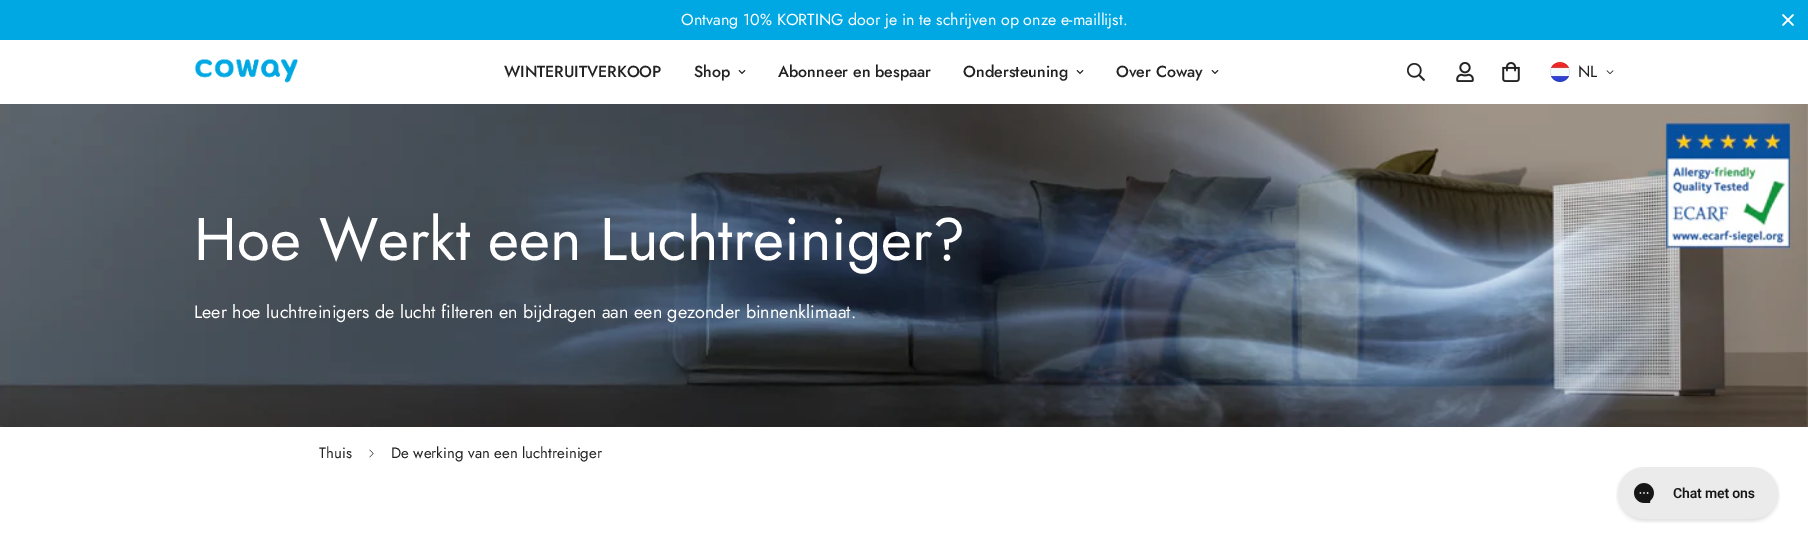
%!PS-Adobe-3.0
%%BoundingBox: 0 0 1808 542
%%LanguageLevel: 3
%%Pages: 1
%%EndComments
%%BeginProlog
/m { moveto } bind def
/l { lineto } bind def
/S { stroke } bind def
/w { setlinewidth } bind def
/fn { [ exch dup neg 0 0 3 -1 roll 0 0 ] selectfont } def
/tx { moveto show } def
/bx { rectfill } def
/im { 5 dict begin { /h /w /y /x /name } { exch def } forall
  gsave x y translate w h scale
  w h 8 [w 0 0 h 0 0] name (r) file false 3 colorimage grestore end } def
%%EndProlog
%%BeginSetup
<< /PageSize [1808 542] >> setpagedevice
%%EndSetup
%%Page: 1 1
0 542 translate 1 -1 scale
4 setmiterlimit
1 setgray
0 0 1808 542 bx
0 0.659 0.89 setrgbcolor
0 0 1808 40 bx
/Jost-Regular 16 fn
1 setgray
(Ontvang 10% KORTING door je in te schrijven op onze e-maillijst.) 681 25 tx
1.7 w
1 setlinecap
1 setlinejoin
1783 25 m 1793 15 l 1783 15 m 1793 25 l S
(image0.raw) 195 59 103 24 im
/Jost-Medium 16 fn
0.133 setgray
(WINTERUITVERKOOP) 504 77 tx
(Shop) 694 77 tx
(image1.raw) 738 70 8 4 im
(Abonneer en bespaar) 778 77 tx
(Ondersteuning) 963 77 tx
(image1.raw) 1076 70 8 4 im
(Over Coway) 1116 77 tx
(image1.raw) 1211 70 8 4 im
(image2.raw) 1407 63 18 18 im
(image3.raw) 1456 62 18 20 im
(image4.raw) 1502 62 18 20 im
(image5.raw) 1550 62 20 20 im
/Jost-Regular 16 fn
(NL) 1578 77 tx
(image6.raw) 1606 70 8 5 im
(image7.raw) 0 104 1808 323 im
/Jost-Regular 60 fn
1 setgray
(Hoe Werkt een Luchtreiniger?) 194 260 tx
/Jost-Regular 18 fn
(Leer hoe luchtreinigers de lucht filteren en bijdragen aan een gezonder binnenklimaat.) 194 318 tx
/Jost-Regular 15 fn
0.133 setgray
(Thuis) 319 458 tx
(image8.raw) 369 449 5 9 im
(De werking van een luchtreiniger) 391 458 tx
(image9.raw) 1616 467 164 56 im
showpage
%%EOF
